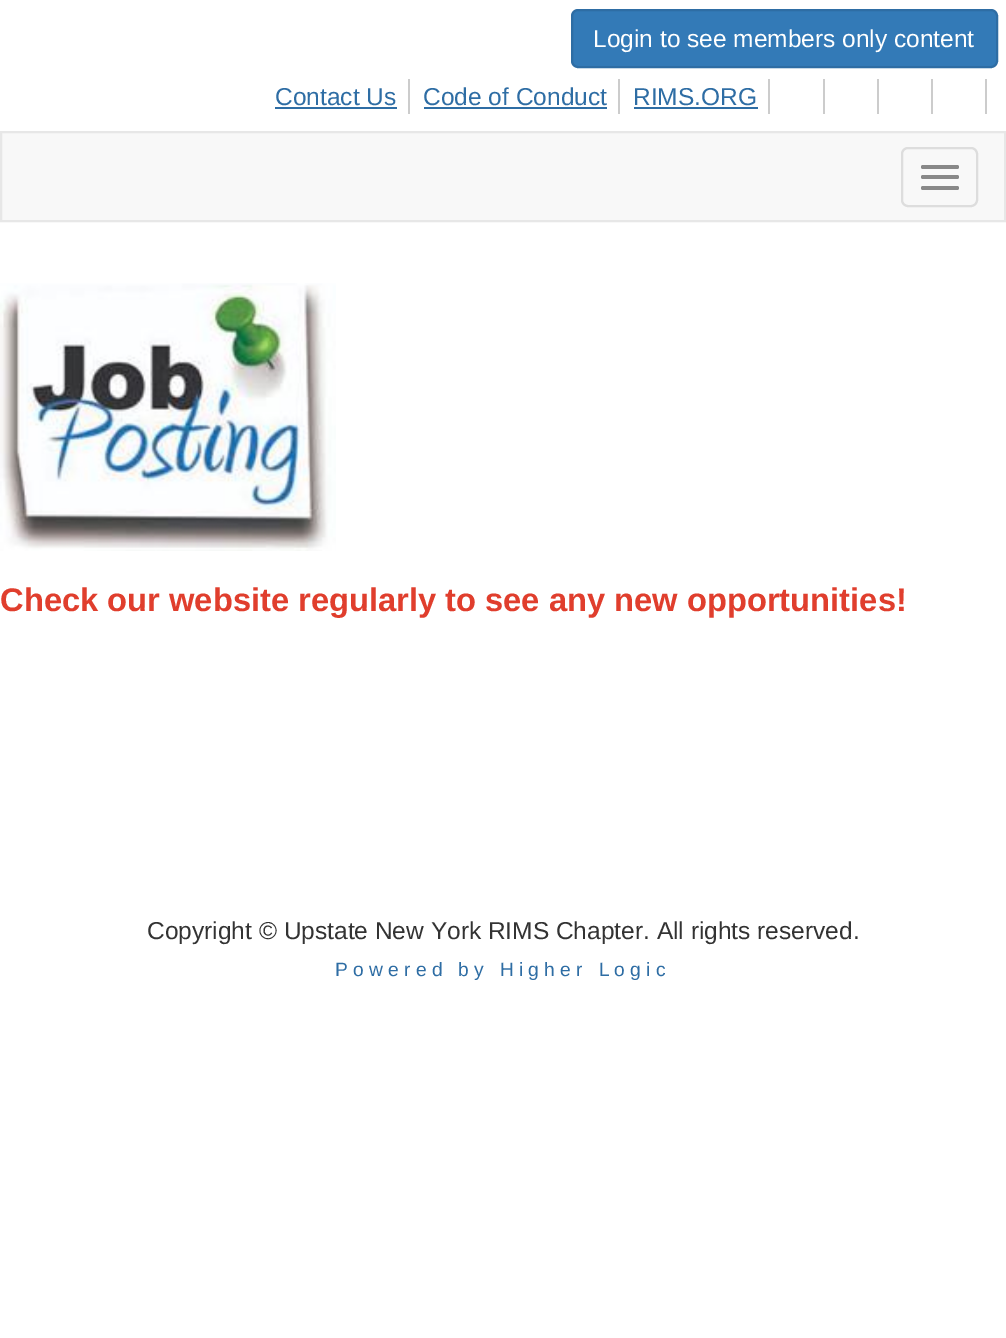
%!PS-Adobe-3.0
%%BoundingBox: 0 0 1006 1338
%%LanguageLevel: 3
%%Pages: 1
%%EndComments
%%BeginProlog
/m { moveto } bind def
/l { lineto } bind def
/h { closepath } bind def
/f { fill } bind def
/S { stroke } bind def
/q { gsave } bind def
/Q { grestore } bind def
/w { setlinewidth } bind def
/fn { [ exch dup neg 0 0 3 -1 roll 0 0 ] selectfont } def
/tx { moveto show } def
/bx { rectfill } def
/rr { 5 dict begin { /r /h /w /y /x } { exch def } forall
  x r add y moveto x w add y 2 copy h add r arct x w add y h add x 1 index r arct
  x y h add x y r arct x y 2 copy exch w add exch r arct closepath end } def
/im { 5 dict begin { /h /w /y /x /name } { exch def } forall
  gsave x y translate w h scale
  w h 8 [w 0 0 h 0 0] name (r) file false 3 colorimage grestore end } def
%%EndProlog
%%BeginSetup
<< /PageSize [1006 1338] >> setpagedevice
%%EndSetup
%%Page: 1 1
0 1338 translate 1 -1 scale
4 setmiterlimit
1 setgray
0 0 1006 1338 bx
0.2 0.478 0.718 setrgbcolor
572 10 425 57 6 rr q f Q
0.18 0.427 0.643 setrgbcolor
2 w
S
/LiberationSans-Regular 24.5 fn
1 setgray
(Login to see members only content) 593 47 tx
0.8 setgray
408 79 2 35 bx
0.18 0.427 0.643 setrgbcolor
(Contact Us) 275 105 tx
275 107 122 2 bx
0.8 setgray
618 79 2 35 bx
0.18 0.427 0.643 setrgbcolor
(Code of Conduct) 423 105 tx
424 107 183 2 bx
0.8 setgray
768 79 2 35 bx
0.18 0.427 0.643 setrgbcolor
(RIMS.ORG) 633 105 tx
634 107 124 2 bx
0.8 setgray
823 79 2 35 bx
877 79 2 35 bx
931 79 2 35 bx
985 79 2 35 bx
0.973 setgray
1 132 m 1005 132 l 1005 221 l 1 221 l h q f Q
0.906 setgray
S
0.867 setgray
902 148 75 58 6 rr S
0.533 setgray
921 165 38 4 2 rr f
921 175 38 4 2 rr f
921 186 38 4 2 rr f
(image0.raw) 0 283 336 268 im
/LiberationSans-Bold 32.7 fn
0.878 0.243 0.176 setrgbcolor
(Check our website regularly to see any new opportunities!) 0 611 tx
/LiberationSans-Regular 24.5 fn
0.2 setgray
(Copyright © Upstate New York RIMS Chapter. All rights reserved.) 147 939 tx
/LiberationSans-Regular 19.25 fn
0.18 0.427 0.643 setrgbcolor
335 976 m 5.25 0 (Powered by Higher Logic) ashow
showpage
%%EOF
